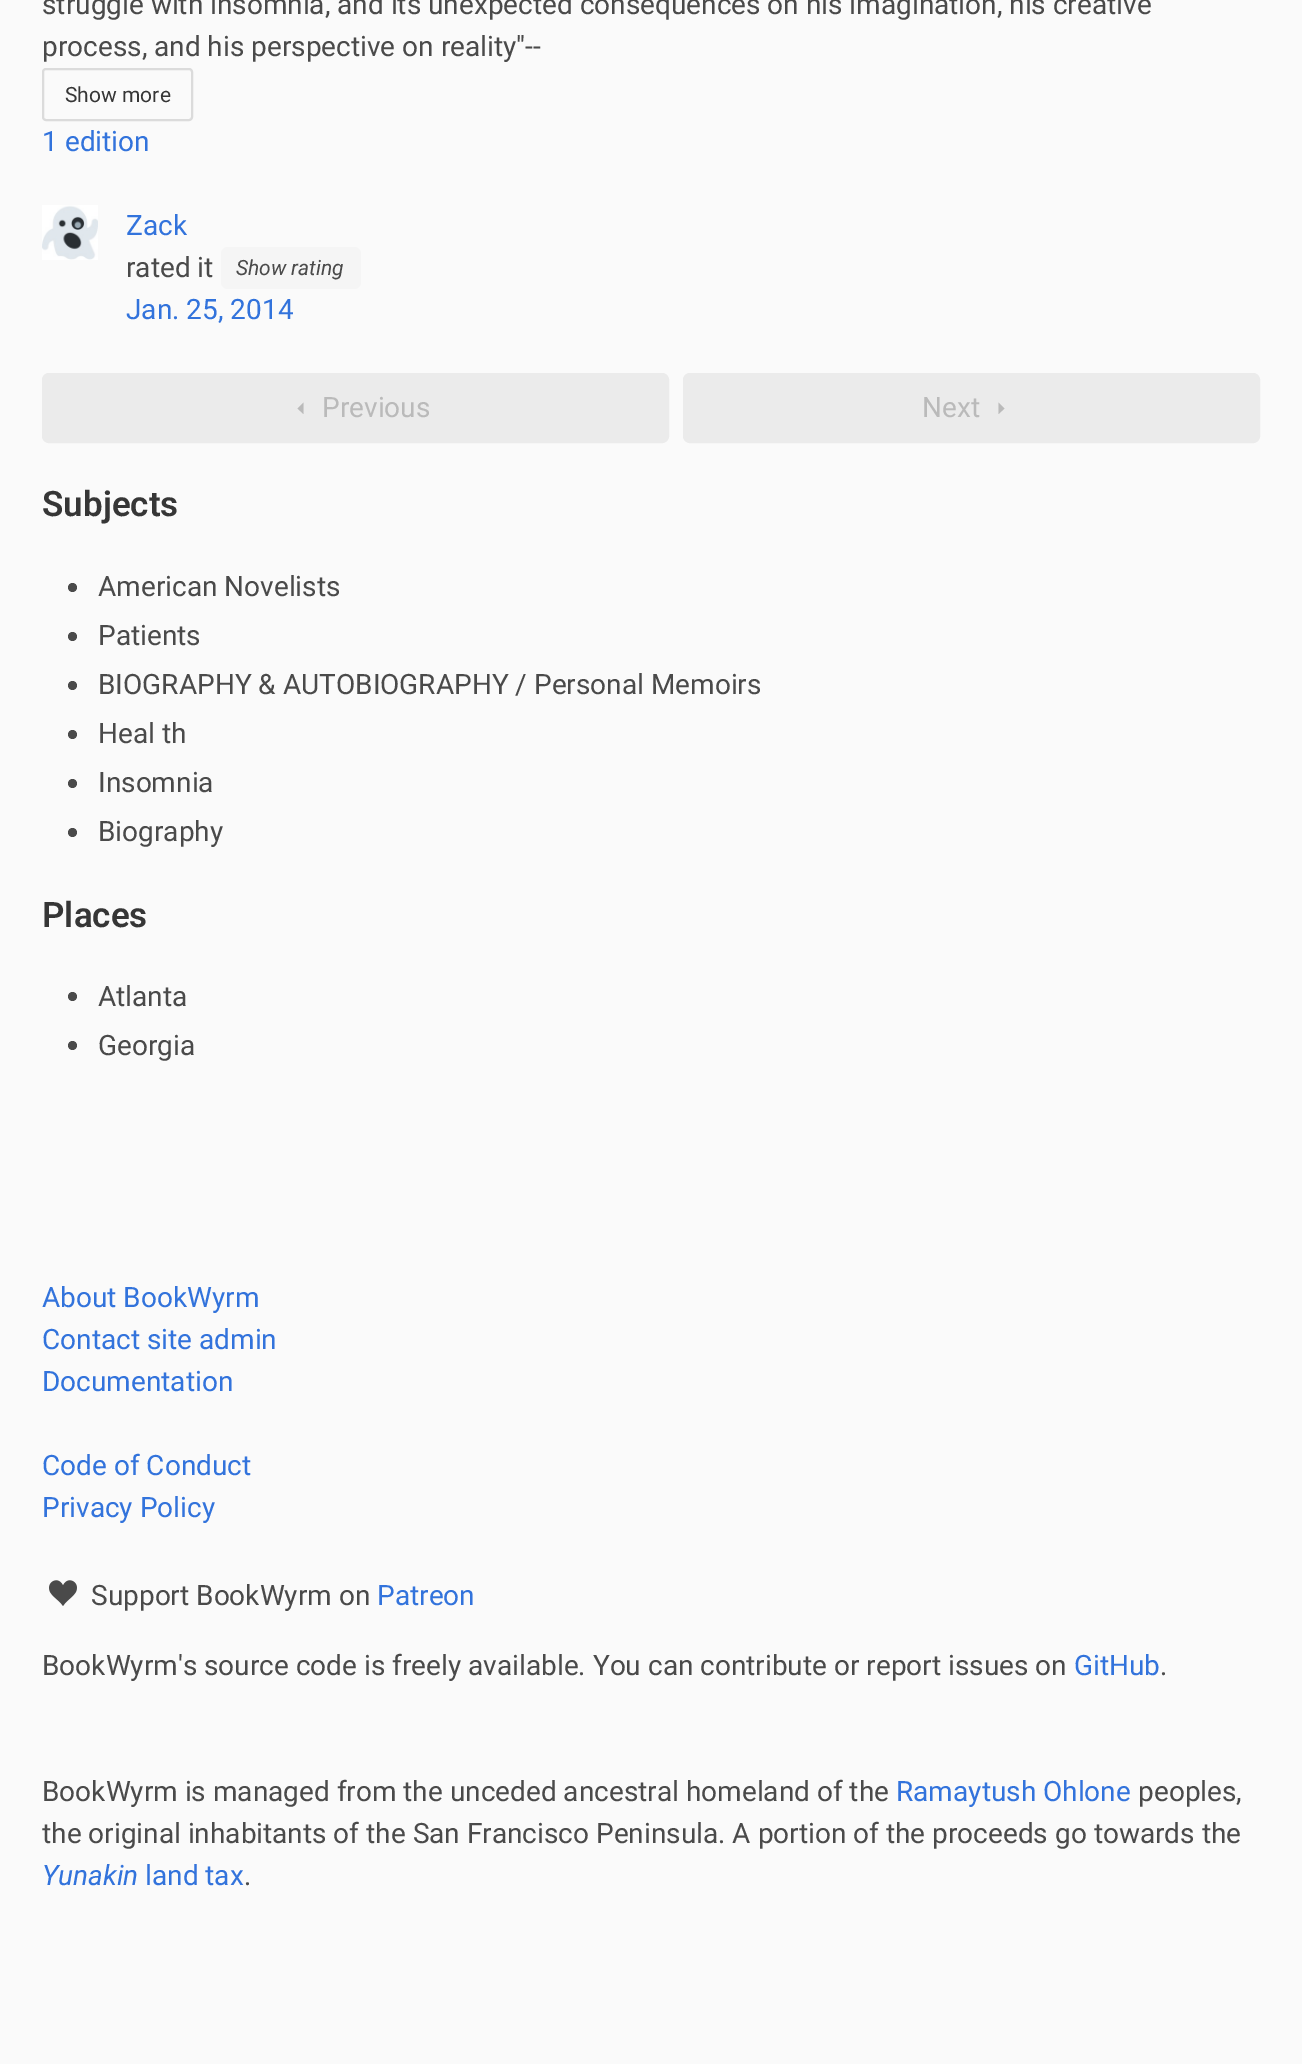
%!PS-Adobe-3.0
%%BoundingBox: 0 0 1302 2064
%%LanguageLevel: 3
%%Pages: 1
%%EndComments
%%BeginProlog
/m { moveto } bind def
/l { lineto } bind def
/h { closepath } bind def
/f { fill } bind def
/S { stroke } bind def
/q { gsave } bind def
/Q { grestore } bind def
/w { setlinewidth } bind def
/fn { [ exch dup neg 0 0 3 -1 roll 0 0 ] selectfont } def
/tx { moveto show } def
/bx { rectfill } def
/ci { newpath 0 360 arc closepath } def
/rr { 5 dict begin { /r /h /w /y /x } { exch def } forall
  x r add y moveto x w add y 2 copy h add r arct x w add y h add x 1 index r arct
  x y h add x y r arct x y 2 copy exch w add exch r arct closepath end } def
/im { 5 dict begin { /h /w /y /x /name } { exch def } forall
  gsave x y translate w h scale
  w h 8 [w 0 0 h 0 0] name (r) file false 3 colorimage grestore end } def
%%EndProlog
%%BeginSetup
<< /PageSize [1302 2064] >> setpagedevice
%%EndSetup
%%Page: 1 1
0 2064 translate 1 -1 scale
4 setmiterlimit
0.98 setgray
0 0 1302 2064 bx
/Roboto-Regular 28 fn
0.29 setgray
(struggle with insomnia, and its unexpected consequences on his imagination, his creative) 42 14 tx
(process, and his perspective on reality"--) 42 56 tx
0.859 setgray
2 w
43 69 149 51 3 rr S
/Roboto-Regular 21 fn
0.212 setgray
(Show more) 65 102 tx
/Roboto-Regular 28 fn
0.196 0.451 0.863 setrgbcolor
(1 edition) 42 151 tx
(image0.raw) 42 205 56 55 im
(Zack) 126 235 tx
0.29 setgray
(rated it) 126 277 tx
0.961 setgray
221 247 140 42 7 rr f
/Roboto-Italic 21 fn
0.29 setgray
(Show rating) 236 275 tx
/Roboto-Regular 28 fn
0.196 0.451 0.863 setrgbcolor
(Jan. 25, 2014) 126 319 tx
0.922 setgray
43 374 625 68 6 rr q f Q
S
0.729 setgray
303.5 402.5 m 303.5 414 l 297.5 408.5 l h f
(Previous) 322 417 tx
0.922 setgray
684 374 575 68 6 rr q f Q
S
0.729 setgray
(Next) 922 417 tx
998.5 414 m 998.5 402.5 l 1004.5 408.5 l h f
/Roboto-SemiBold 35 fn
0.212 setgray
(Subjects) 42 516 tx
0.29 setgray
72.5 587.5 4.5 ci f
/Roboto-Regular 28 fn
(American Novelists) 98 596 tx
72.5 636.5 4.5 ci f
(Patients) 98 645 tx
72.5 685.5 4.5 ci f
(BIOGRAPHY & AUTOBIOGRAPHY / Personal Memoirs) 98 694 tx
72.5 734.5 4.5 ci f
(Heal th) 98 743 tx
72.5 783.5 4.5 ci f
(Insomnia) 98 792 tx
72.5 832.5 4.5 ci f
(Biography) 98 841 tx
/Roboto-SemiBold 35 fn
0.212 setgray
(Places) 42 927 tx
0.29 setgray
72.5 996.5 4.5 ci f
/Roboto-Regular 28 fn
(Atlanta) 98 1006 tx
72.5 1045.5 4.5 ci f
(Georgia) 98 1055 tx
0.196 0.451 0.863 setrgbcolor
(About BookWyrm) 42 1307 tx
(Contact site admin) 42 1349 tx
(Documentation) 42 1391 tx
(Code of Conduct) 42 1475 tx
(Privacy Policy) 42 1517 tx
(image1.raw) 49 1580 28 26 im
0.29 setgray
(Support BookWyrm on) 91 1605 tx
0.196 0.451 0.863 setrgbcolor
(Patreon) 377 1605 tx
0.29 setgray
(BookWyrm's source code is freely available. You can contribute or report issues on) 42 1675 tx
0.196 0.451 0.863 setrgbcolor
(GitHub) 1074 1675 tx
0.29 setgray
(.) 1160 1675 tx
(BookWyrm is managed from the unceded ancestral homeland of the) 42 1801 tx
0.196 0.451 0.863 setrgbcolor
(Ramaytush Ohlone) 896 1801 tx
0.29 setgray
(peoples,) 1138 1801 tx
(the original inhabitants of the San Francisco Peninsula. A portion of the proceeds go towards the) 42 1843 tx
/Roboto-Italic 28 fn
0.196 0.451 0.863 setrgbcolor
(Yunakin) 42 1885 tx
/Roboto-Regular 28 fn
(land tax) 145 1885 tx
0.29 setgray
(.) 244 1885 tx
showpage
%%EOF
